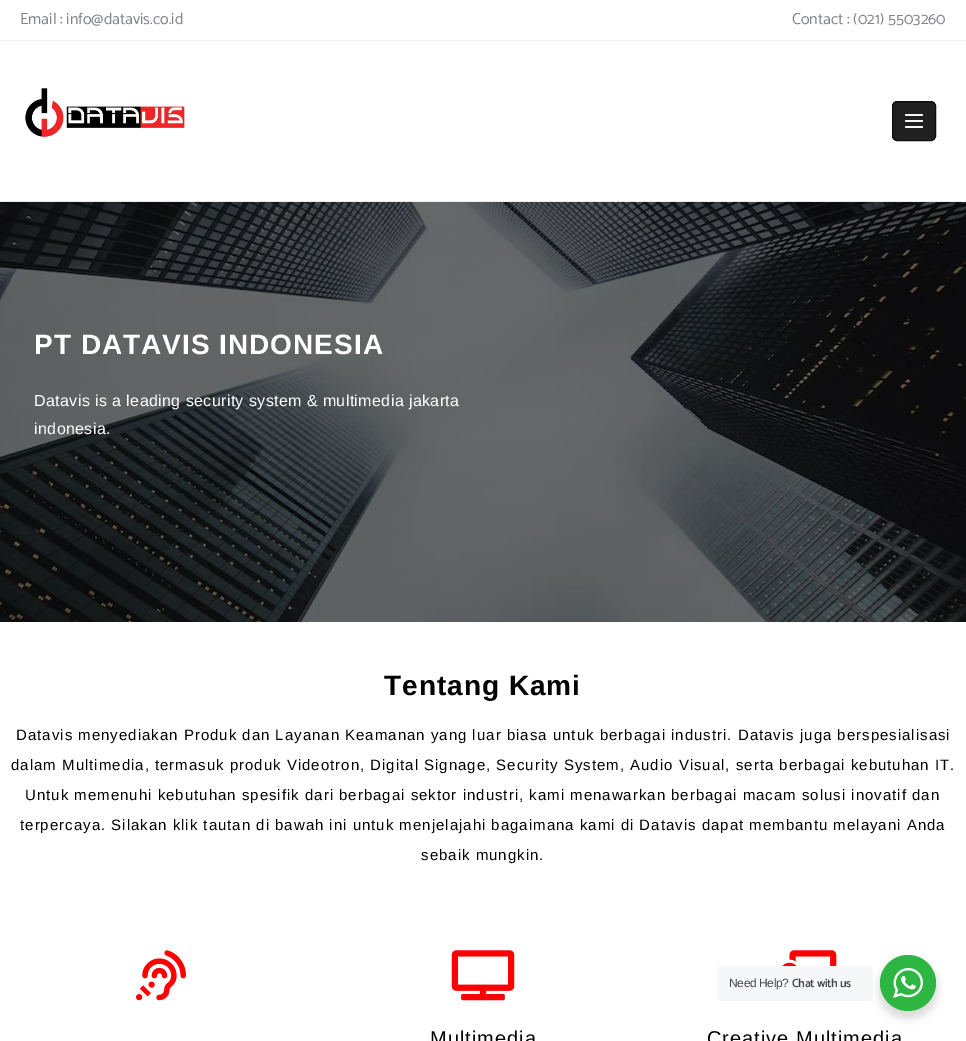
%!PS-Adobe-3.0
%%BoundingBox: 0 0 966 1041
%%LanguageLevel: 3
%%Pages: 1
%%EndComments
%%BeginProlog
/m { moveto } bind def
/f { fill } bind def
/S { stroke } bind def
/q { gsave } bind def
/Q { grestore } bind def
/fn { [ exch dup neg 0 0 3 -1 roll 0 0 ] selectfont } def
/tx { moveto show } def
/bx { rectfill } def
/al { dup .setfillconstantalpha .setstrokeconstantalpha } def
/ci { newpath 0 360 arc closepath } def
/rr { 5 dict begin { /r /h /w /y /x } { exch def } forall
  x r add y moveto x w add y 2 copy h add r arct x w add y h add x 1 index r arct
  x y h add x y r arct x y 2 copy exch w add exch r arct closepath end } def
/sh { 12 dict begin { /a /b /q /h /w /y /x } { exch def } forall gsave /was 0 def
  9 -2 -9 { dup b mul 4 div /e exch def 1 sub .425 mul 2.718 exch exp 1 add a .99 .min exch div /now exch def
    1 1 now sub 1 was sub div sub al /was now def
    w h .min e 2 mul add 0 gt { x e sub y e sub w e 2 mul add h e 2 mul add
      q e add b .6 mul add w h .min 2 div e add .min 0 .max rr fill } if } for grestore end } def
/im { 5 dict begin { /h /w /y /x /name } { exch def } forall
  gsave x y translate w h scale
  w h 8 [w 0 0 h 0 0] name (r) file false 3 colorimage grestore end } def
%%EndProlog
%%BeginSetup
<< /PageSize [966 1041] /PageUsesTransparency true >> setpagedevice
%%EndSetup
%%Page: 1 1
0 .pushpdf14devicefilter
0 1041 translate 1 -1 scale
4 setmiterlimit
1 setgray
0 0 966 1041 bx
0.933 setgray
0 40 966 1 bx
/Catamaran-Regular 16 fn
0.502 0.51 0.522 setrgbcolor
(Email : info@datavis.co.id) 20 24 tx
(Contact : \(021\) 5503260) 792 24 tx
0.933 setgray
0 201 966 1 bx
(image0.raw) 25 88 160 49 im
0.125 setgray
892.5 101.5 43 39 4.5 rr q f Q
0.047 setgray
S
0.961 setgray
905 114 18 2 1 rr f
905 120 18 2 1 rr f
905 126 18 2 1 rr f
(image1.raw) 0 202 966 420 im
/LiberationSans-Bold 28 fn
1 setgray
34 354 m 1 0 (PT DATAVIS INDONESIA) ashow
/LiberationSans-Regular 16 fn
34 406 m 0.4 0 (Datavis is a leading security system & multimedia jakarta) ashow
34 434 m 0.4 0 (indonesia.) ashow
/LiberationSans-Bold 28 fn
0 setgray
384 695 m 1 0 (Tentang Kami) ashow
/LiberationSans-Regular 15 fn
16 740 m 1 0 (Datavis menyediakan Produk dan Layanan Keamanan yang luar biasa untuk berbagai industri. Datavis juga berspesialisasi) ashow
11 770 m 1 0 (dalam Multimedia, termasuk produk Videotron, Digital Signage, Security System, Audio Visual, serta berbagai kebutuhan IT.) ashow
25 800 m 1 0 (Untuk memenuhi kebutuhan spesifik dari berbagai sektor industri, kami menawarkan berbagai macam solusi inovatif dan) ashow
20 830 m 1 0 (terpercaya. Silakan klik tautan di bawah ini untuk menjelajahi bagaimana kami di Datavis dapat membantu melayani Anda) ashow
421 860 m 1 0 (sebaik mungkin.) ashow
(image2.raw) 136 950 50 51 im
(image3.raw) 451 950 64 51 im
/LiberationSans-Regular 20 fn
430 1045 m 1 0 (Multimedia) ashow
(image4.raw) 782 950 55 16 im
707 1045 m 1 0 (Creative Multimedia) ashow
878 959 60 60 30 4 0.14 sh
0.961 0.969 0.976 setrgbcolor
717 966 156 35 4 rr f
/LiberationSans-Regular 12 fn
0.263 0.278 0.306 setrgbcolor
729 987 m -0.4 0 (Need Help?) ashow
/Catamaran-SemiBold 12 fn
792 987 m -0.4 0 (Chat with us) ashow
0.176 0.718 0.259 setrgbcolor
908 983 28 ci f
(image5.raw) 893 968 30 30 im
.poppdf14devicefilter showpage
%%EOF
